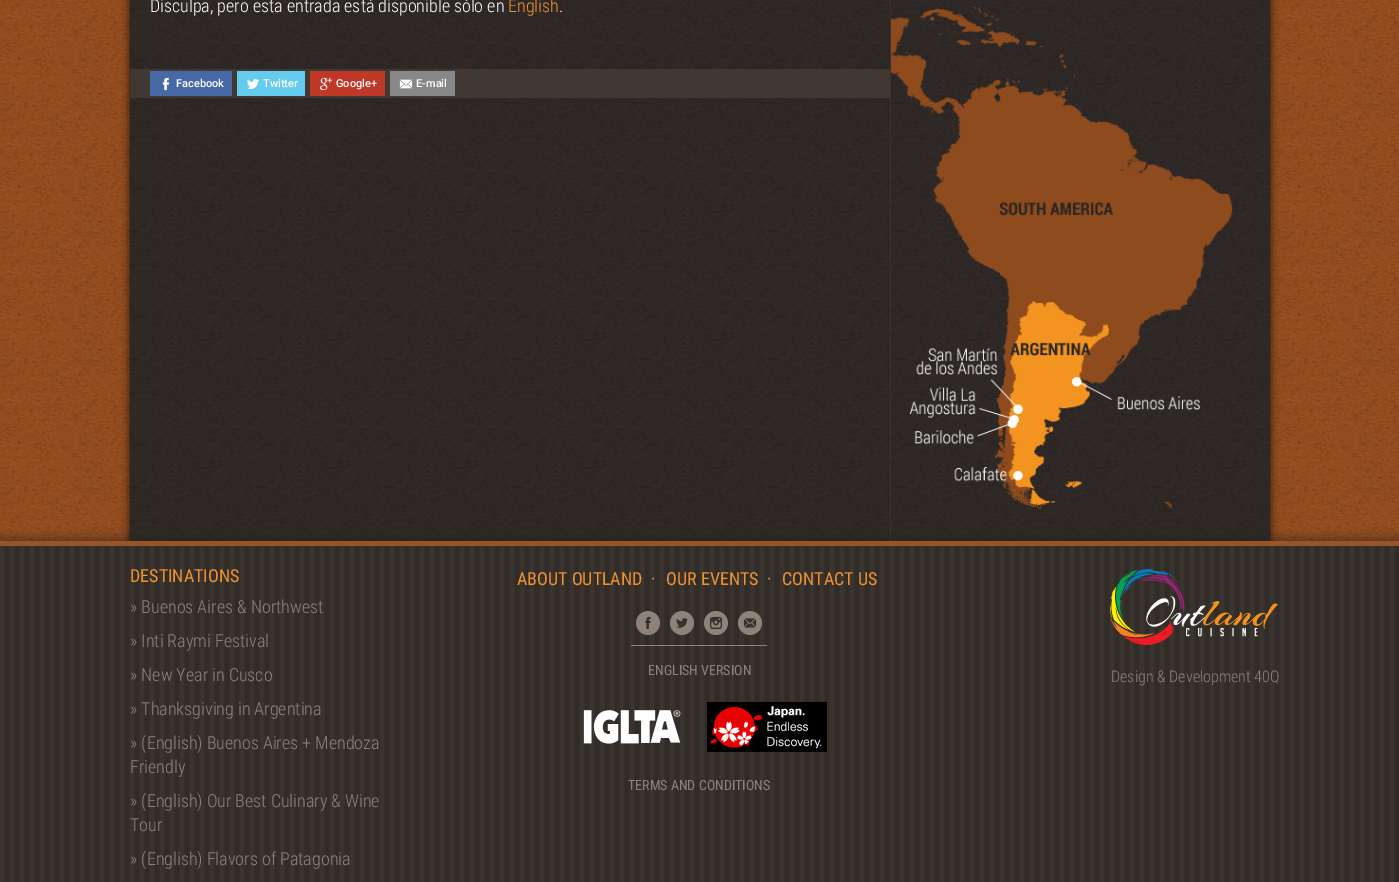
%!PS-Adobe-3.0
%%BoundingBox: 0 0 1399 882
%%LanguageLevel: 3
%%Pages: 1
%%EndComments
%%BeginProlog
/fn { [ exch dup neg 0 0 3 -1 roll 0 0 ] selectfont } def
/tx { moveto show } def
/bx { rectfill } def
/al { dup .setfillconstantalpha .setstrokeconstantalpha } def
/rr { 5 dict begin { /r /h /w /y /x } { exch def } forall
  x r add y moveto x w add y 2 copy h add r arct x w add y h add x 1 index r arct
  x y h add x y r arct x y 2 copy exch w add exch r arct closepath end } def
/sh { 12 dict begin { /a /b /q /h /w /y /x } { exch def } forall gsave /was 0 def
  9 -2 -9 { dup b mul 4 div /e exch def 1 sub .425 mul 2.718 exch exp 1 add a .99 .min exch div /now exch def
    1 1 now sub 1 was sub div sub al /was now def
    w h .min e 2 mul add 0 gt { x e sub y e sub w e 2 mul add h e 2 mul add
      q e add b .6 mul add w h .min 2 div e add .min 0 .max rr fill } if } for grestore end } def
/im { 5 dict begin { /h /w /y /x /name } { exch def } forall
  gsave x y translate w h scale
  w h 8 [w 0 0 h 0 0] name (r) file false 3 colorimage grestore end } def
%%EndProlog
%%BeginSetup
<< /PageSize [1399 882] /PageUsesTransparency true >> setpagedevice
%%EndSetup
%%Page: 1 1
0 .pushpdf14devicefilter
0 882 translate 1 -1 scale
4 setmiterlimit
1 setgray
0 0 1399 882 bx
(image0.raw) 0 0 1399 541 im
0 setgray
130 -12 1140 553 0 4 0.85 sh
(image1.raw) 130 0 1140 541 im
/RobotoCondensed-Light 18 fn
1 setgray
(Disculpa, pero esta entrada está disponible sólo en) 150 12 tx
0.945 0.573 0.196 setrgbcolor
(English) 508 12 tx
1 setgray
(.) 559 12 tx
0.247 0.22 0.2 setrgbcolor
130 69 760 29 bx
0.278 0.412 0.647 setrgbcolor
150 71 82 25 bx
(image2.raw) 162 77 8 14 im
/Roboto-Medium 11 fn
1 setgray
(Facebook) 176 87 tx
0.396 0.8 0.937 setrgbcolor
237 71 68 25 bx
(image3.raw) 247 79 12 10 im
1 setgray
(Twitter) 263 87 tx
0.749 0.216 0.153 setrgbcolor
310 71 75 25 bx
(image4.raw) 319 77 14 14 im
1 setgray
(Google+) 336 87 tx
0.533 setgray
390 71 65 25 bx
(image5.raw) 399 79 14 10 im
1 setgray
(E-mail) 416 87 tx
0.227 0.204 0.184 setrgbcolor
890 0 1 541 bx
(image6.raw) 891 7 342 502 im
0.118 setgray
0 538 1399 343 0 5 0.5 sh
(image7.raw) 0 546 1399 336 im
0.612 0.325 0.157 setrgbcolor
0 541 1399 5 bx
/RobotoCondensed-Regular 18 fn
0.945 0.573 0.196 setrgbcolor
(DESTINATIONS) 130 582 tx
/RobotoCondensed-Light 18 fn
0.557 0.514 0.475 setrgbcolor
(» Buenos Aires & Northwest) 130 613 tx
(» Inti Raymi Festival) 130 647 tx
(» New Year in Cusco) 130 681 tx
(» Thanksgiving in Argentina) 130 715 tx
(» \(English\) Buenos Aires + Mendoza) 130 749 tx
(Friendly) 130 773 tx
(» \(English\) Our Best Culinary & Wine) 130 807 tx
(Tour) 130 831 tx
(» \(English\) Flavors of Patagonia) 130 865 tx
/RobotoCondensed-Regular 18 fn
0.945 0.573 0.196 setrgbcolor
(ABOUT OUTLAND) 517 585 tx
(·) 651 585 tx
(OUR EVENTS) 666 585 tx
(·) 767 585 tx
(CONTACT US) 782 585 tx
0.557 0.514 0.475 setrgbcolor
631 645 136 1 bx
(image8.raw) 636 611 24 24 im
(image9.raw) 670 611 24 24 im
(image10.raw) 704 611 24 24 im
(image11.raw) 738 611 24 24 im
/RobotoCondensed-Regular 14 fn
(ENGLISH VERSION) 648 675 tx
(image12.raw) 583 710 98 34 im
(image13.raw) 707 702 120 50 im
(TERMS AND CONDITIONS) 628 790 tx
(image14.raw) 1110 569 168 76 im
/RobotoCondensed-Light 16 fn
(Design & Development 40Q) 1111 682 tx
.poppdf14devicefilter showpage
%%EOF
